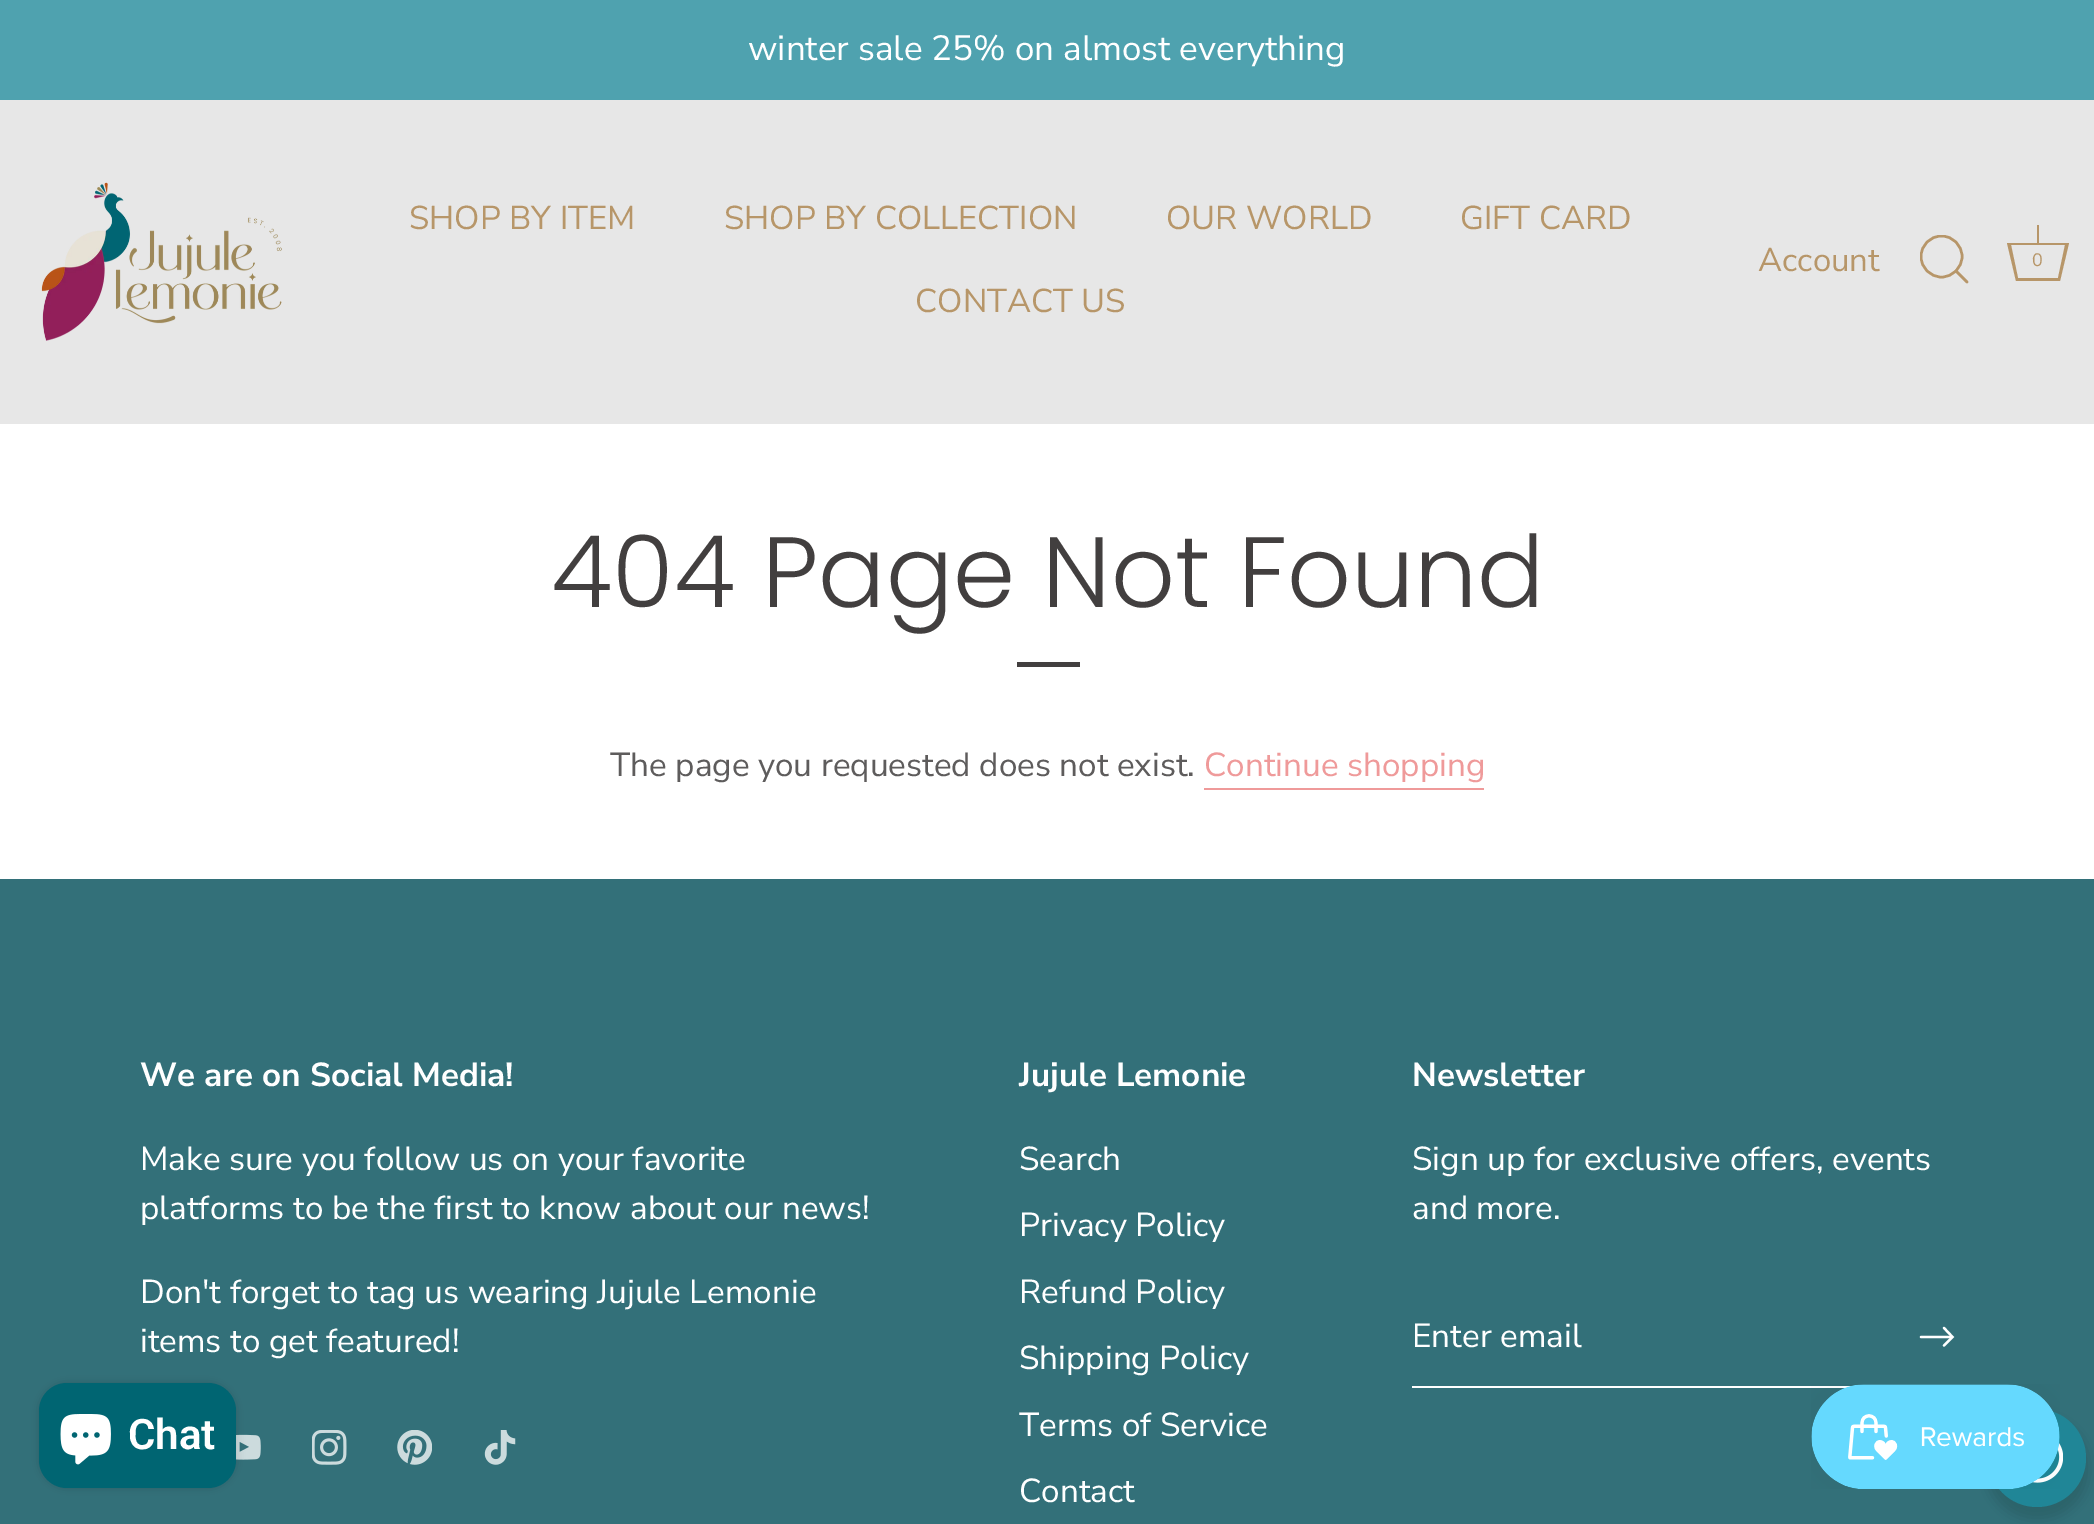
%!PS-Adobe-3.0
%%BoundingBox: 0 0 2094 1524
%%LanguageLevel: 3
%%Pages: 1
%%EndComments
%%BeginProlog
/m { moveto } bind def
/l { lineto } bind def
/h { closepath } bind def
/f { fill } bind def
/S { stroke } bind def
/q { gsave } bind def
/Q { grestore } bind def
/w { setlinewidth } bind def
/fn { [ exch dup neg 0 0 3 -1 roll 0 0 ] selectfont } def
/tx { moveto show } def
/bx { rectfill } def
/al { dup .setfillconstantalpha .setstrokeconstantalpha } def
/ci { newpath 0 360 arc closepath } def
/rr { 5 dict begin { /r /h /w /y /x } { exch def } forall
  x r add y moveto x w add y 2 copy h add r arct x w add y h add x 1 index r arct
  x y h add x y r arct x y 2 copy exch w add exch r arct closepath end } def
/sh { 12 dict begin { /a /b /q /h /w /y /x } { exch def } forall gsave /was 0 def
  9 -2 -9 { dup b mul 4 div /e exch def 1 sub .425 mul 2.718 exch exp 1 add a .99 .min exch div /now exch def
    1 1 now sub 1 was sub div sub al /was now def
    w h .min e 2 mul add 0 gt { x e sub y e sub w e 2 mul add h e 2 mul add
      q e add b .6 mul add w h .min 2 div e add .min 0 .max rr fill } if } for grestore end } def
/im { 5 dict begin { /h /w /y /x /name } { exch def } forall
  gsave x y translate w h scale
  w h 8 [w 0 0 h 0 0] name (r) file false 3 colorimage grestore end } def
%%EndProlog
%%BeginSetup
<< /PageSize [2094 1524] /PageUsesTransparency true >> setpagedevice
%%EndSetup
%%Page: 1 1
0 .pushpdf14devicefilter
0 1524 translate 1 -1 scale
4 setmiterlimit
1 setgray
0 0 2094 1524 bx
0.906 setgray
0 100 2094 324 bx
0.31 0.635 0.686 setrgbcolor
0 0 2094 100 bx
/NunitoSans-Regular 35 fn
1 setgray
(winter sale 25% on almost everything) 748 60 tx
(image0.raw) 41 182 241 159 im
/NunitoSans-Regular 33 fn
0.718 0.588 0.412 setrgbcolor
(SHOP BY ITEM) 409 229 tx
(SHOP BY COLLECTION) 724 229 tx
(OUR WORLD) 1166 229 tx
(GIFT CARD) 1460 229 tx
(CONTACT US) 915 312 tx
(Account) 1758 271 tx
q
1920 235 51 50 rectclip
2.5 w
1941.5 256.5 20.5 ci S
Q
2.5 w
1 setlinecap
1 setlinejoin
1967 282 m 1956 271 l S
2037 225 2 18 bx
2065 245 m 2058 278 l 2018 278 l 2011 245 l 2065 245 l 2069 243 m 2007 243 l 2016 281 l 2060 281 l h f
/NunitoSans-Regular 18 fn
(0) 2032 266 tx
/Poppins-Light 99.75 fn
0.259 0.247 0.247 setrgbcolor
(404 Page Not Found) 551 607 tx
1017 662 63 5 bx
/NunitoSans-Regular 33.25 fn
0.369 0.361 0.361 setrgbcolor
(The page you requested does not exist.) 610 776 tx
0.937 0.604 0.604 setrgbcolor
(Continue shopping) 1204 776 tx
1204 788 280 2 bx
0.2 0.439 0.475 setrgbcolor
0 879 2094 645 bx
/NunitoSans-Bold 33.25 fn
1 setgray
(We are on Social Media!) 140 1086 tx
/NunitoSans-Regular 33.25 fn
(Make sure you follow us on your favorite) 140 1170 tx
(platforms to be the first to know about our news!) 140 1219 tx
(Don't forget to tag us wearing Jujule Lemonie) 140 1303 tx
(items to get featured!) 140 1352 tx
(image1.raw) 236 1434 25 26 im
(image2.raw) 312 1430 35 35 im
(image3.raw) 397 1430 35 35 im
(image4.raw) 484 1430 32 35 im
/NunitoSans-Bold 33.25 fn
(Jujule Lemonie) 1019 1086 tx
/NunitoSans-Regular 33.25 fn
(Search) 1019 1170 tx
(Privacy Policy) 1019 1236 tx
(Refund Policy) 1019 1303 tx
(Shipping Policy) 1019 1369 tx
(Terms of Service) 1019 1436 tx
(Contact) 1019 1502 tx
/NunitoSans-Bold 33.25 fn
(Newsletter) 1412 1086 tx
/NunitoSans-Regular 33.25 fn
(Sign up for exclusive offers, events) 1412 1170 tx
(and more.) 1412 1219 tx
1412 1386 439 2 bx
(Enter email) 1412 1347 tx
2.3 w
0 setlinejoin
1944 1345.5 m 1952.5 1337 l 1944 1328 l S
1 setlinejoin
1951.5 1337 m 1921 1337 l S
0 setgray
1985 1416 105 105 52.5 7 0.14 sh
0.125 0.525 0.592 setrgbcolor
2037 1458 49 ci f
(image7.raw) 2032 1443 31 40 im
(image5.raw) 1811 1384 249 105 im
0 setgray
39 1383 197 105 28 4.5 0.15 sh
0 0.396 0.447 setrgbcolor
39 1383 197 105 28 rr f
(image6.raw) 60 1414 51 51 im
/Roboto-SemiBold 42 fn
1 setgray
(Chat) 128 1449 tx
.poppdf14devicefilter showpage
%%EOF
